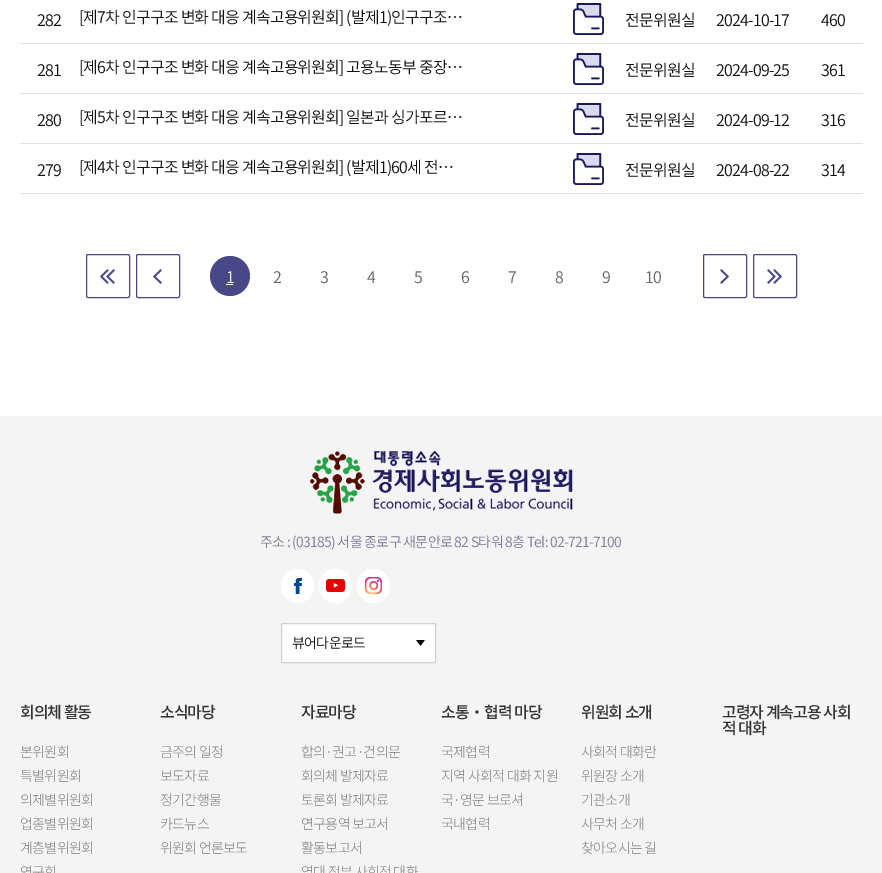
%!PS-Adobe-3.0
%%BoundingBox: 0 0 882 873
%%LanguageLevel: 3
%%Pages: 1
%%EndComments
%%BeginProlog
/m { moveto } bind def
/f { fill } bind def
/S { stroke } bind def
/fn { [ exch dup neg 0 0 3 -1 roll 0 0 ] selectfont } def
/bx { rectfill } def
/ci { newpath 0 360 arc closepath } def
/rr { 5 dict begin { /r /h /w /y /x } { exch def } forall
  x r add y moveto x w add y 2 copy h add r arct x w add y h add x 1 index r arct
  x y h add x y r arct x y 2 copy exch w add exch r arct closepath end } def
/im { 5 dict begin { /h /w /y /x /name } { exch def } forall
  gsave x y translate w h scale
  w h 8 [w 0 0 h 0 0] name (r) file false 3 colorimage grestore end } def
%%EndProlog
%%BeginSetup
<< /PageSize [882 873] >> setpagedevice
%%EndSetup
%%Page: 1 1
0 873 translate 1 -1 scale
4 setmiterlimit
1 setgray
0 0 882 873 bx
0.882 setgray
20 193 843 1 bx
/NotoSansKR-Light 16 fn
0.067 setgray
37 26 m -0.8 0 (282) ashow
79 23 m -0.8 0 ([제7차 인구구조 변화 대응 계속고용위원회] \(발제1\)인구구조…) ashow
(image0.raw) 573 3 31 32 im
625 26 m -0.8 0 (전문위원실) ashow
716 26 m -0.8 0 (2024-10-17) ashow
0.882 setgray
20 43 843 1 bx
0.067 setgray
821 26 m -0.8 0 (460) ashow
37 76 m -0.8 0 (281) ashow
79 73 m -0.8 0 ([제6차 인구구조 변화 대응 계속고용위원회] 고용노동부 중장…) ashow
(image0.raw) 573 53 31 32 im
625 76 m -0.8 0 (전문위원실) ashow
716 76 m -0.8 0 (2024-09-25) ashow
0.882 setgray
20 93 843 1 bx
0.067 setgray
821 76 m -0.8 0 (361) ashow
37 126 m -0.8 0 (280) ashow
79 123 m -0.8 0 ([제5차 인구구조 변화 대응 계속고용위원회] 일본과 싱가포르…) ashow
(image0.raw) 573 103 31 32 im
625 126 m -0.8 0 (전문위원실) ashow
716 126 m -0.8 0 (2024-09-12) ashow
0.882 setgray
20 143 843 1 bx
0.067 setgray
821 126 m -0.8 0 (316) ashow
37 176 m -0.8 0 (279) ashow
79 173 m -0.8 0 ([제4차 인구구조 변화 대응 계속고용위원회] \(발제1\)60세 전…) ashow
(image0.raw) 573 153 31 32 im
625 176 m -0.8 0 (전문위원실) ashow
716 176 m -0.8 0 (2024-08-22) ashow
821 176 m -0.8 0 (314) ashow
(image1.raw) 100 269 15 15 im
0.282 0.282 0.537 setrgbcolor
86.5 254.5 43 43 1.5 rr S
(image2.raw) 153 269 9 15 im
136.5 254.5 43 43 1.5 rr S
230 276 20 ci f
1 setgray
226 283 m -0.8 0 (1) ashow
226 284 7 1 bx
0.4 setgray
273 283 m -0.8 0 (2) ashow
320 283 m -0.8 0 (3) ashow
367 283 m -0.8 0 (4) ashow
414 283 m -0.8 0 (5) ashow
461 283 m -0.8 0 (6) ashow
508 283 m -0.8 0 (7) ashow
555 283 m -0.8 0 (8) ashow
602 283 m -0.8 0 (9) ashow
645 283 m -0.8 0 (10) ashow
(image3.raw) 720 269 9 15 im
0.282 0.282 0.537 setrgbcolor
703.5 254.5 43 43 1.5 rr S
(image4.raw) 767 269 15 15 im
753.5 254.5 43 43 1.5 rr S
0.957 setgray
0 416 882 457 bx
(image5.raw) 310 451 263 63 im
/NotoSansKR-Light 14 fn
0.486 0.475 0.584 setrgbcolor
260 547 m -0.7 0 (주소 : \(03185\) 서울 종로구 새문안로 82 S타워 8층 Tel: 02-721-7100) ashow
1 setgray
281 569 33 34 16.5 rr f
(image6.raw) 294 578 8 16 im
319 569 33 34 16.5 rr f
(image7.raw) 326 579 19 13 im
357 569 33 34 16.5 rr f
(image8.raw) 364 576 19 19 im
281 623 155 40 2 rr f
(image9.raw) 416 640 9 6 im
0.808 0.82 0.839 setrgbcolor
281.5 623.5 154 39 1.5 rr S
0.067 setgray
292 648 m -0.7 0 (뷰어다운로드) ashow
/NotoSansKR-Medium 16 fn
0.2 setgray
20 718 m -1 0 (회의체 활동) ashow
/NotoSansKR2-Light 14 fn
0.486 setgray
20 757 m -0.7 0 (본위원회) ashow
20 781 m -0.7 0 (특별위원회) ashow
20 805 m -0.7 0 (의제별위원회) ashow
20 829 m -0.7 0 (업종별위원회) ashow
20 853 m -0.7 0 (계층별위원회) ashow
20 877 m -0.7 0 (연구회) ashow
/NotoSansKR-Medium 16 fn
0.2 setgray
160 718 m -1 0 (소식마당) ashow
/NotoSansKR2-Light 14 fn
0.486 setgray
160 757 m -0.7 0 (금주의 일정) ashow
160 781 m -0.7 0 (보도자료) ashow
160 805 m -0.7 0 (정기간행물) ashow
160 829 m -0.7 0 (카드뉴스) ashow
160 853 m -0.7 0 (위원회 언론보도) ashow
/NotoSansKR-Medium 16 fn
0.2 setgray
301 718 m -1 0 (자료마당) ashow
/NotoSansKR2-Light 14 fn
0.486 setgray
301 757 m -0.7 0 (합의·권고·건의문) ashow
301 781 m -0.7 0 (회의체 발제자료) ashow
301 805 m -0.7 0 (토론회 발제자료) ashow
301 829 m -0.7 0 (연구용역 보고서) ashow
301 853 m -0.7 0 (활동보고서) ashow
301 877 m -0.7 0 (역대 정부 사회적 대화) ashow
/NotoSansKR-Medium 16 fn
0.2 setgray
441 718 m -1 0 (소통) ashow
/NotoSansCJKKR-Regular 16 fn
469 718 m -1 0 (‧) ashow
/NotoSansKR-Medium 16 fn
484 718 m -1 0 (협력 마당) ashow
/NotoSansKR2-Light 14 fn
0.486 setgray
441 757 m -0.7 0 (국제협력) ashow
441 781 m -0.7 0 (지역 사회적 대화 지원) ashow
441 805 m -0.7 0 (국·영문 브로셔) ashow
441 829 m -0.7 0 (국내협력) ashow
/NotoSansKR-Medium 16 fn
0.2 setgray
581 718 m -1 0 (위원회 소개) ashow
/NotoSansKR2-Light 14 fn
0.486 setgray
581 757 m -0.7 0 (사회적 대화란) ashow
581 781 m -0.7 0 (위원장 소개) ashow
581 805 m -0.7 0 (기관소개) ashow
581 829 m -0.7 0 (사무처 소개) ashow
581 853 m -0.7 0 (찾아오시는 길) ashow
/NotoSansKR-Medium 16 fn
0.2 setgray
722 718 m -1 0 (고령자 계속고용 사회) ashow
722 734 m -1 0 (적 대화) ashow
showpage
%%EOF
